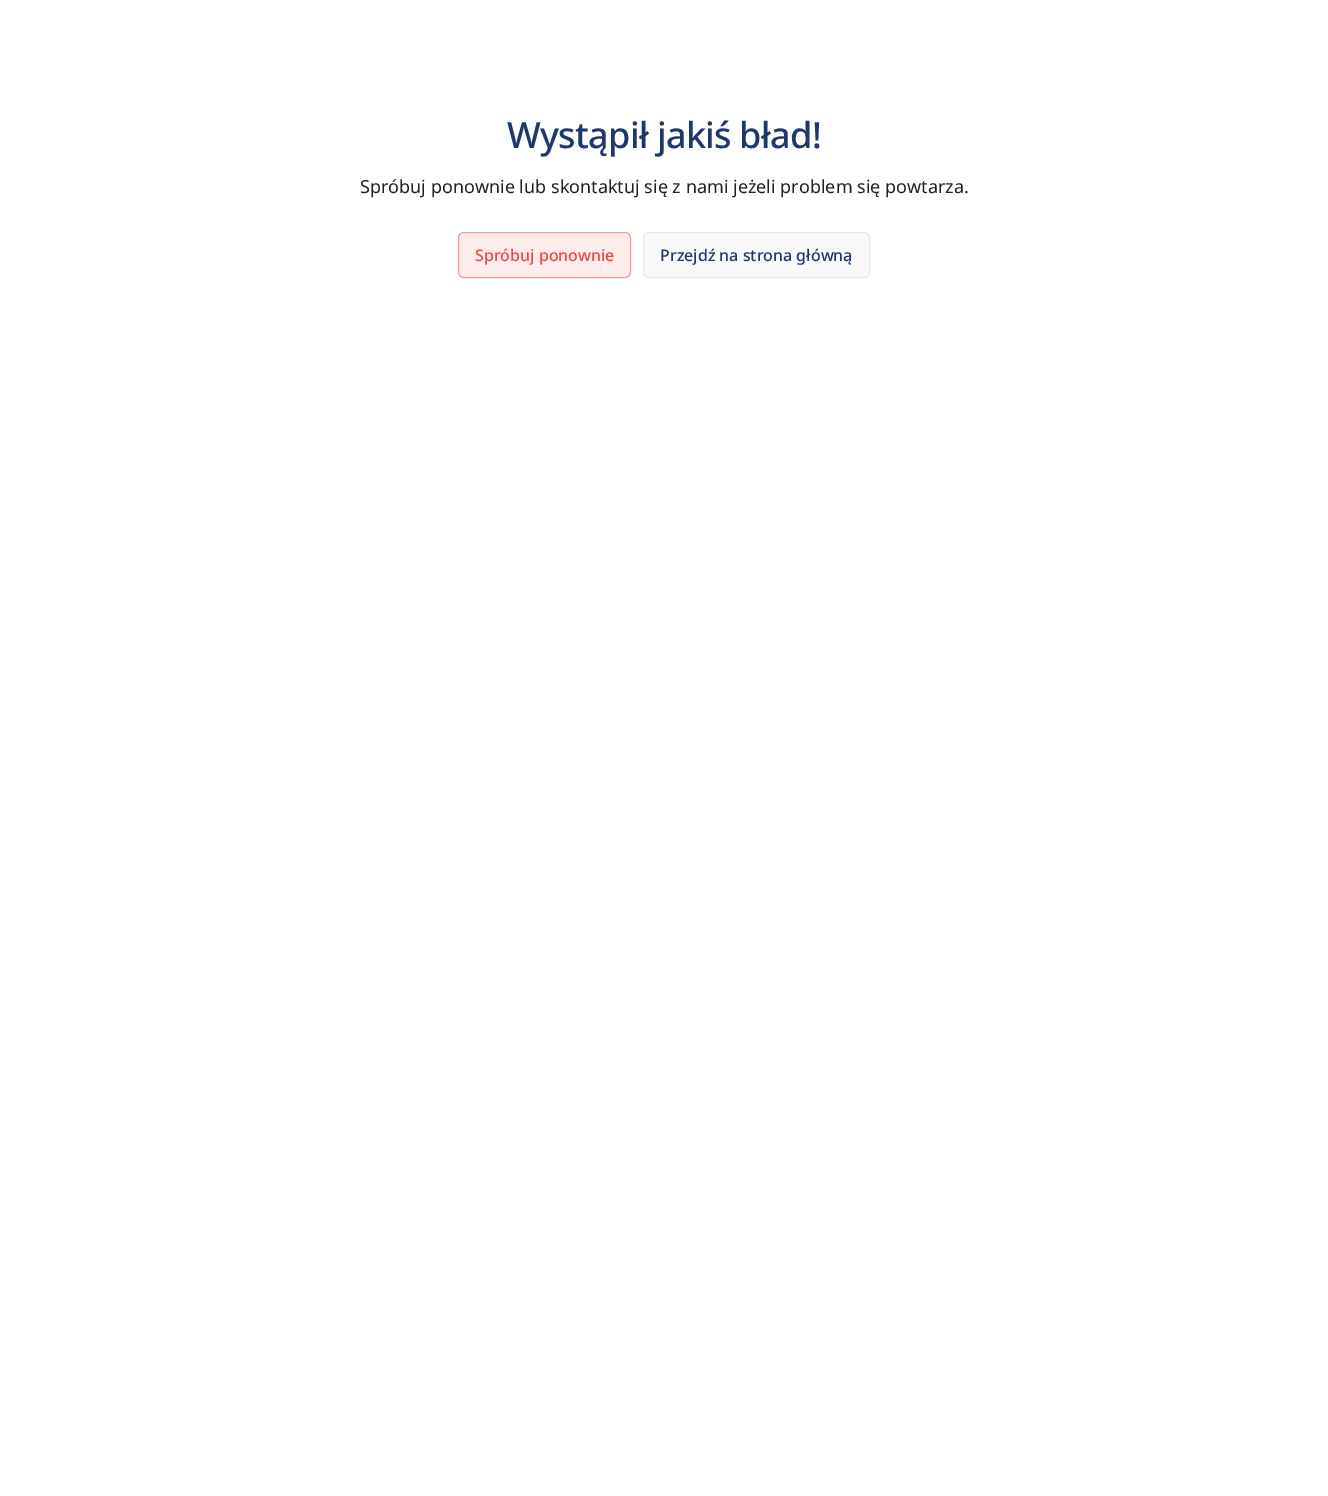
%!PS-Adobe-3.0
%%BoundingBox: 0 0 1328 1496
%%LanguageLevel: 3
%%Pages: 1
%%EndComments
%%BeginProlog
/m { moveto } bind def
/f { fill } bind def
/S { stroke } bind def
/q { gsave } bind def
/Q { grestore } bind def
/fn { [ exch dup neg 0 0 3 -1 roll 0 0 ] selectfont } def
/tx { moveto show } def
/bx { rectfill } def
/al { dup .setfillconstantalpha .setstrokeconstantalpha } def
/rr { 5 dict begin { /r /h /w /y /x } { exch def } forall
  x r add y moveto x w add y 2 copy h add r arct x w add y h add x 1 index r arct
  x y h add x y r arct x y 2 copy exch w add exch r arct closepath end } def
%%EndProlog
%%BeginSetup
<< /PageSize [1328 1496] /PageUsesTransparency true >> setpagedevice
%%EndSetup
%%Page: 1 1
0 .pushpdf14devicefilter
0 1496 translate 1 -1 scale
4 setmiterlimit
1 setgray
0 0 1328 1496 bx
/NotoSans-Medium 36 fn
0.122 0.22 0.424 setrgbcolor
507 148 m -0.7 0 (Wystąpił jakiś bład!) ashow
/NotoSans-Regular 18 fn
0.118 0.125 0.153 setrgbcolor
(Spróbuj ponownie lub skontaktuj się z nami jeżeli problem się powtarza.) 360 193 tx
0.992 0.925 0.925 setrgbcolor
458 232 173 46 6 rr f
0.5 al
0.937 0.267 0.267 setrgbcolor
458.5 232.5 172 45 5.5 rr S
/NotoSans-Medium 16 fn
1 al
(Spróbuj ponownie) 475 261 tx
0.976 setgray
643.5 232.5 226 45 5.5 rr q f Q
0.898 0.906 0.922 setrgbcolor
S
0.122 0.22 0.424 setrgbcolor
(Przejdź na strona główną) 660 261 tx
.poppdf14devicefilter showpage
%%EOF
